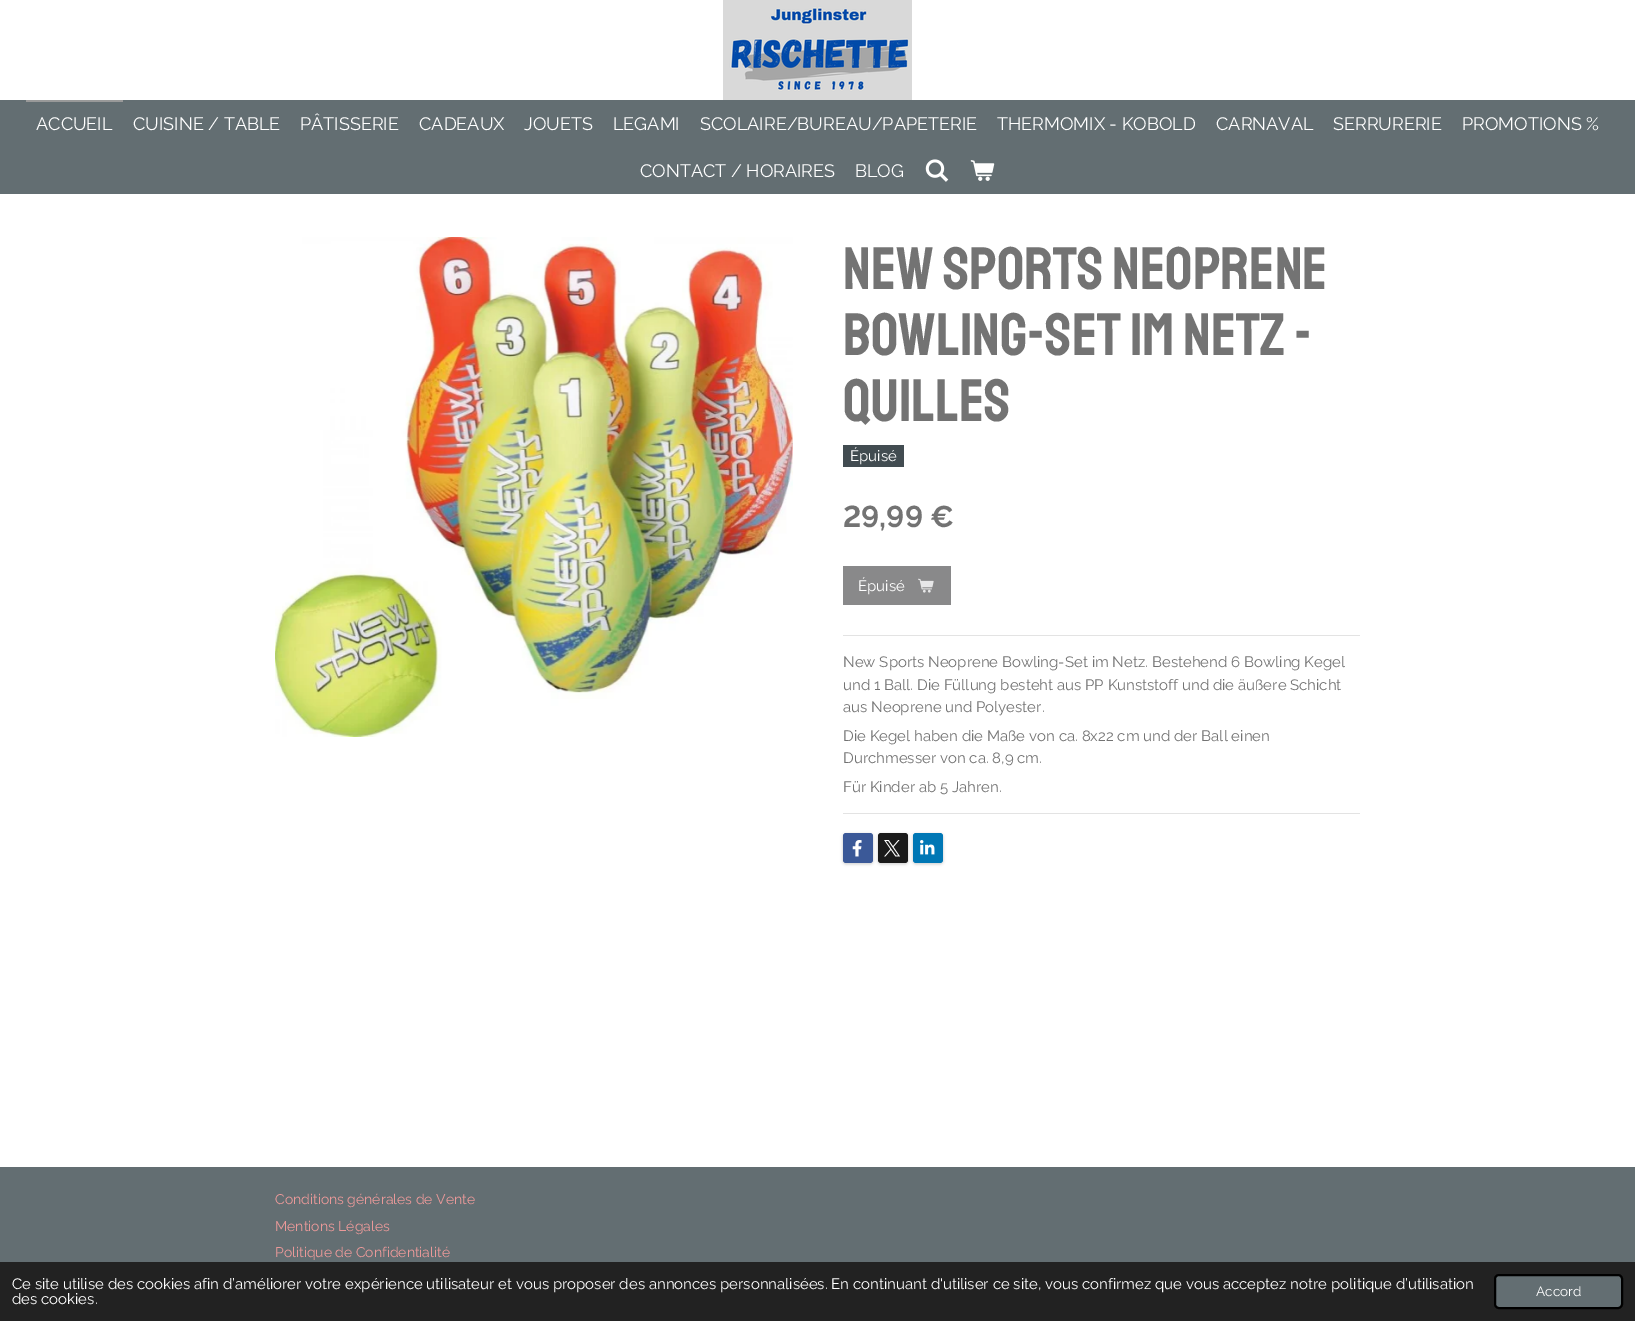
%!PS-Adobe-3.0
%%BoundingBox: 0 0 1635 1321
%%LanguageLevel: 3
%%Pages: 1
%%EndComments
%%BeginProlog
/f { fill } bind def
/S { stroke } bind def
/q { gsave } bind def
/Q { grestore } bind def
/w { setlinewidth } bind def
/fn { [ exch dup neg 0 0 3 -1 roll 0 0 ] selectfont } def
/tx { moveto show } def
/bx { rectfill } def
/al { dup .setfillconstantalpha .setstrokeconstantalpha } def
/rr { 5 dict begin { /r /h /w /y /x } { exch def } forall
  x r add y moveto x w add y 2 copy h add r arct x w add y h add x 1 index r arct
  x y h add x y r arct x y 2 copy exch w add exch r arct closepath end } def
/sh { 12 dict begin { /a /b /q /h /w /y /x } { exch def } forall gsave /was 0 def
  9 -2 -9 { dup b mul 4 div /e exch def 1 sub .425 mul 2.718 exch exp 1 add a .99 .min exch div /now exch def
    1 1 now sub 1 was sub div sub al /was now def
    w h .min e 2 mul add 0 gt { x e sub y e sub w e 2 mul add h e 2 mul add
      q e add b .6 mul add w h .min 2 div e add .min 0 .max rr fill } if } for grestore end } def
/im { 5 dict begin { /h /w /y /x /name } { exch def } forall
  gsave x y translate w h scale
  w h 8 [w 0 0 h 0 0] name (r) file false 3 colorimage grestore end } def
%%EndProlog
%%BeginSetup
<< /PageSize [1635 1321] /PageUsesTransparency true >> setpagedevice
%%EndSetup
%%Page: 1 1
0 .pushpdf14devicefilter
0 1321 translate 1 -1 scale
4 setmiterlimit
1 setgray
0 0 1635 1321 bx
(image0.raw) 723 0 189 100 im
0.388 0.431 0.447 setrgbcolor
0 100 1635 94 bx
0.6 setgray
26 100 97 2 bx
/Raleway-Regular 18 fn
1 setgray
(ACCUEIL) 36 130 tx
(CUISINE / TABLE) 133 130 tx
(PÂTISSERIE) 300 130 tx
(CADEAUX) 419 130 tx
(JOUETS) 524 130 tx
(LEGAMI) 613 130 tx
(SCOLAIRE/BUREAU/PAPETERIE) 700 130 tx
(THERMOMIX - KOBOLD) 997 130 tx
(CARNAVAL) 1216 130 tx
(SERRURERIE) 1333 130 tx
(PROMOTIONS %) 1462 130 tx
(CONTACT / HORAIRES) 640 177 tx
(BLOG) 855 177 tx
(image1.raw) 925 159 24 23 im
(image2.raw) 970 160 25 21 im
(image3.raw) 275 237 518 500 im
/Staatliches-Regular 60 fn
0.451 setgray
(New Sports Neoprene) 843 289 tx
(Bowling-Set im Netz -) 843 355 tx
(QUILLES) 843 421 tx
0.259 0.298 0.318 setrgbcolor
843 445 61 22 bx
/Raleway-Regular 15 fn
1 setgray
(Épuisé) 850 461 tx
/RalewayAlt-Bold 30 fn
0.451 setgray
(29,99 €) 843 527 tx
0.537 0.537 0.541 setrgbcolor
843 566 108 39 bx
/Raleway-Regular 15 fn
1 setgray
(Épuisé) 858 591 tx
(image4.raw) 918 578 16 15 im
0.89 setgray
843 635 517 1 bx
0.451 setgray
(New Sports Neoprene Bowling-Set im Netz. Bestehend 6 Bowling Kegel) 843 667 tx
(und 1 Ball. Die Füllung besteht aus PP Kunststoff und die äußere Schicht) 843 690 tx
(aus Neoprene und Polyester.) 843 712 tx
(Die Kegel haben die Maße von ca. 8x22 cm und der Ball einen) 843 741 tx
(Durchmesser von ca. 8,9 cm.) 843 763 tx
(Für Kinder ab 5 Jahren.) 843 792 tx
0.89 setgray
843 813 517 1 bx
0 setgray
843 834 30 30 3 1.5 0.2 sh
0.231 0.349 0.596 setrgbcolor
843 833 30 30 3 rr f
(image5.raw) 852 840 10 17 im
0 setgray
878 834 30 30 3 1.5 0.2 sh
0.102 setgray
878 833 30 30 3 rr f
(image6.raw) 884 840 16 17 im
0 setgray
913 834 30 30 3 1.5 0.2 sh
0 0.467 0.71 setrgbcolor
913 833 30 30 3 rr f
(image7.raw) 920 840 15 15 im
0.388 0.431 0.447 setrgbcolor
0 1167 1635 95 bx
/Raleway-Regular 14 fn
0.922 0.6 0.6 setrgbcolor
(Conditions générales de Vente) 275 1204 tx
(Mentions Légales) 275 1231 tx
(Politique de Confidentialité) 275 1257 tx
0.133 setgray
0 1262 1635 59 bx
/Raleway-Regular 15 fn
1 setgray
(Ce site utilise des cookies afin d’améliorer votre expérience utilisateur et vous proposer des annonces personnalisées. En continuant d'utiliser ce site, vous confirmez que vous acceptez notre politique d’utilisation) 12 1289 tx
(des cookies.) 12 1304 tx
0.388 0.431 0.447 setrgbcolor
1495 1275 127 33 4 rr q f Q
0 setgray
2 w
S
/Raleway-Regular 13.5 fn
1 setgray
(Accord) 1536 1296 tx
.poppdf14devicefilter showpage
%%EOF
